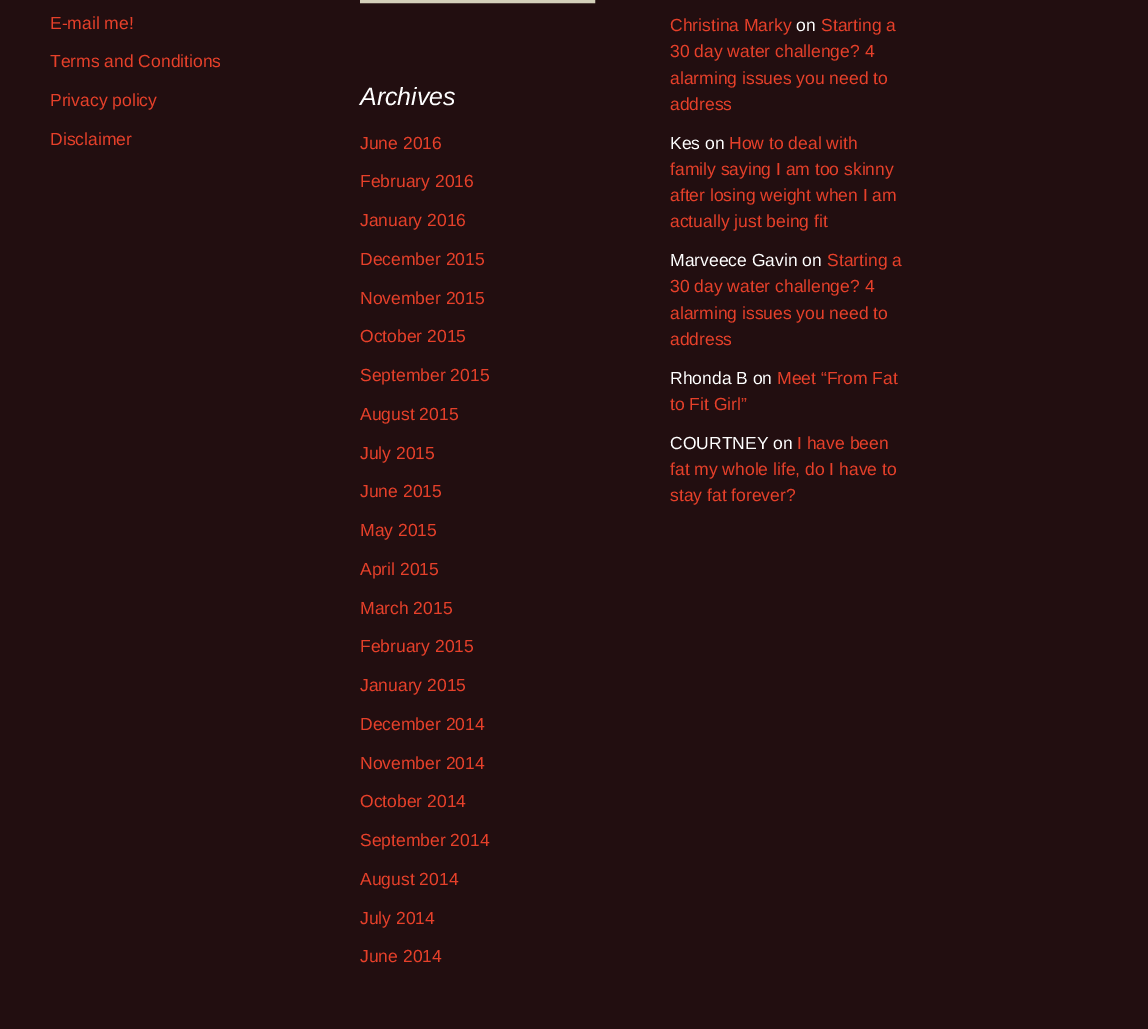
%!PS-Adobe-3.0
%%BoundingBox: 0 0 1148 1029
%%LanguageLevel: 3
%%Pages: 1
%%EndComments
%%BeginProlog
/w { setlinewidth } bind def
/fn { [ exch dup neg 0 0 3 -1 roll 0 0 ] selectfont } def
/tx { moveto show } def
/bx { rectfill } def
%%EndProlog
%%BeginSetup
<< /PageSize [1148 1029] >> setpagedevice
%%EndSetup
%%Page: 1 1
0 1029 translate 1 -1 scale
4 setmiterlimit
0.133 0.055 0.063 setrgbcolor
0 0 1148 1029 bx
0.831 0.816 0.729 setrgbcolor
3 w
361.5 -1.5 232 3 rectstroke
/LiberationSans-Regular 17.5 fn
0.902 0.251 0.165 setrgbcolor
(E-mail me!) 50 29 tx
(Terms and Conditions) 50 67 tx
(Privacy policy) 50 106 tx
(Disclaimer) 50 145 tx
/LiberationSans-Italic 25 fn
1 setgray
(Archives) 360 105 tx
/LiberationSans-Regular 17.5 fn
0.902 0.251 0.165 setrgbcolor
(June 2016) 360 149 tx
(February 2016) 360 187 tx
(January 2016) 360 226 tx
(December 2015) 360 265 tx
(November 2015) 360 304 tx
(October 2015) 360 342 tx
(September 2015) 360 381 tx
(August 2015) 360 420 tx
(July 2015) 360 459 tx
(June 2015) 360 497 tx
(May 2015) 360 536 tx
(April 2015) 360 575 tx
(March 2015) 360 614 tx
(February 2015) 360 652 tx
(January 2015) 360 691 tx
(December 2014) 360 730 tx
(November 2014) 360 769 tx
(October 2014) 360 807 tx
(September 2014) 360 846 tx
(August 2014) 360 885 tx
(July 2014) 360 924 tx
(June 2014) 360 962 tx
(Christina Marky) 670 31 tx
1 setgray
(on) 796 31 tx
0.902 0.251 0.165 setrgbcolor
(Starting a) 821 31 tx
(30 day water challenge? 4) 670 57 tx
(alarming issues you need to) 670 84 tx
(address) 670 110 tx
1 setgray
(Kes on) 670 149 tx
0.902 0.251 0.165 setrgbcolor
(How to deal with) 729 149 tx
(family saying I am too skinny) 670 175 tx
(after losing weight when I am) 670 201 tx
(actually just being fit) 670 227 tx
1 setgray
(Marveece Gavin on) 670 266 tx
0.902 0.251 0.165 setrgbcolor
(Starting a) 827 266 tx
(30 day water challenge? 4) 670 292 tx
(alarming issues you need to) 670 319 tx
(address) 670 345 tx
1 setgray
(Rhonda B on) 670 384 tx
0.902 0.251 0.165 setrgbcolor
(Meet “From Fat) 777 384 tx
(to Fit Girl”) 670 410 tx
1 setgray
(COURTNEY on) 670 449 tx
0.902 0.251 0.165 setrgbcolor
(I have been) 797 449 tx
(fat my whole life, do I have to) 670 475 tx
(stay fat forever?) 670 501 tx
showpage
%%EOF
